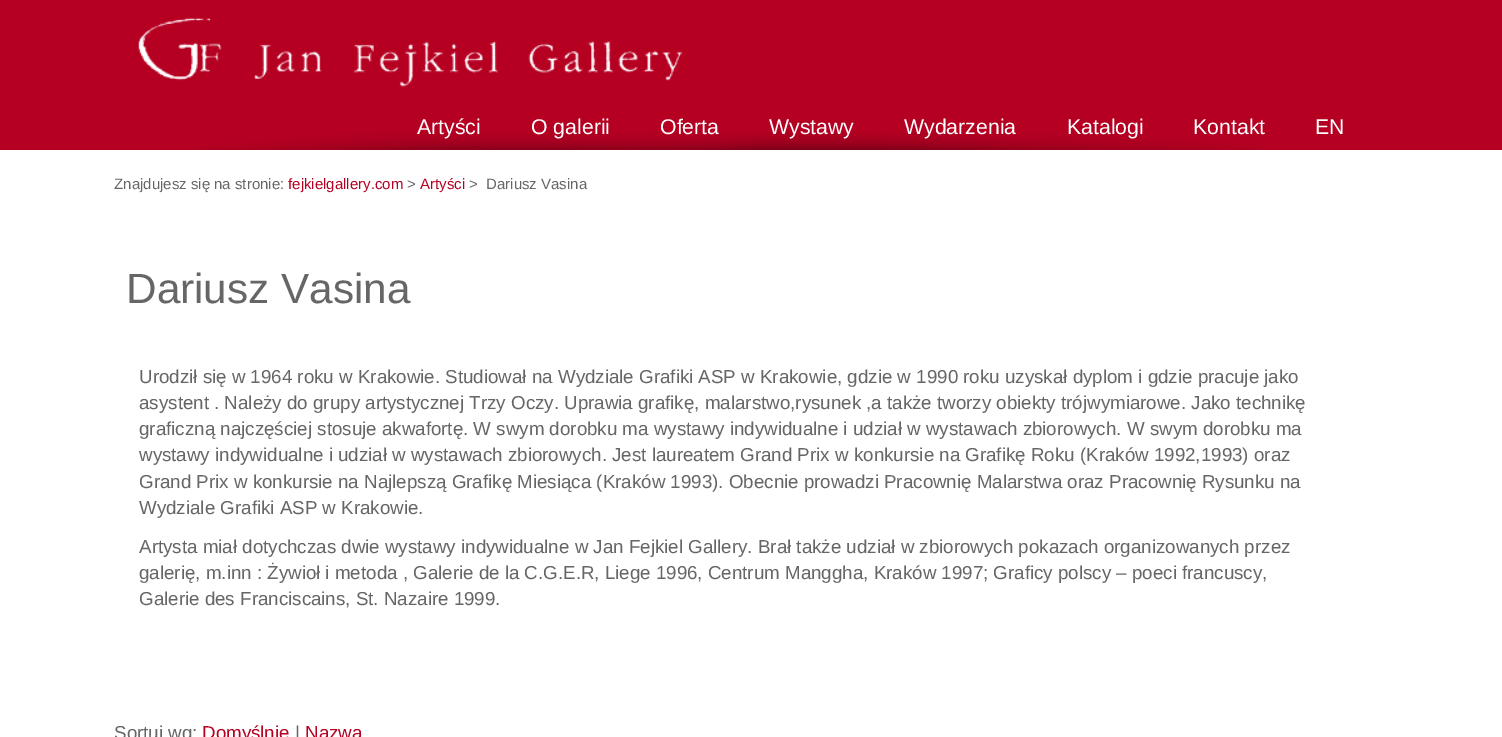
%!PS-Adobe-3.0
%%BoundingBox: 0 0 1502 737
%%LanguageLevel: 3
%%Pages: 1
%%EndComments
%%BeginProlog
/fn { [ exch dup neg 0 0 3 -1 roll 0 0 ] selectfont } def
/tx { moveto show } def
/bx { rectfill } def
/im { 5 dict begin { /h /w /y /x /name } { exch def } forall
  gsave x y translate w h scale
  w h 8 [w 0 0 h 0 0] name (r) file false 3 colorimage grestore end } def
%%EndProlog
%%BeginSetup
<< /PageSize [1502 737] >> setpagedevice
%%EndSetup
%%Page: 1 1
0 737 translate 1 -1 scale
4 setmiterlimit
1 setgray
0 0 1502 737 bx
0.71 0 0.133 setrgbcolor
0 0 1502 150 bx
(image0.raw) 198 131 1065 19 im
(image1.raw) 138 18 545 69 im
/LiberationSans-Regular 21.25 fn
1 setgray
(Artyści) 417 134 tx
(O galerii) 531 134 tx
(Oferta) 660 134 tx
(Wystawy) 769 134 tx
(Wydarzenia) 904 134 tx
(Katalogi) 1067 134 tx
(Kontakt) 1193 134 tx
(EN) 1315 134 tx
/LiberationSans-Regular 15 fn
0.4 setgray
(Znajdujesz się na stronie:) 114 189 tx
0.71 0 0.133 setrgbcolor
(fejkielgallery.com) 288 189 tx
0.4 setgray
(>) 407 189 tx
0.71 0 0.133 setrgbcolor
(Artyści) 420 189 tx
0.4 setgray
(>  Dariusz Vasina) 469 189 tx
/LiberationSans-Regular 42.25 fn
(Dariusz Vasina) 126 303 tx
/LiberationSans-Regular 18.75 fn
(Urodził się w 1964 roku w Krakowie. Studiował na Wydziale Grafiki ASP w Krakowie, gdzie w 1990 roku uzyskał dyplom i gdzie pracuje jako) 139 383 tx
(asystent . Należy do grupy artystycznej Trzy Oczy. Uprawia grafikę, malarstwo,rysunek ,a także tworzy obiekty trójwymiarowe. Jako technikę) 139 409 tx
(graficzną najczęściej stosuje akwafortę. W swym dorobku ma wystawy indywidualne i udział w wystawach zbiorowych. W swym dorobku ma) 139 435 tx
(wystawy indywidualne i udział w wystawach zbiorowych. Jest laureatem Grand Prix w konkursie na Grafikę Roku \(Kraków 1992,1993\) oraz) 139 461 tx
(Grand Prix w konkursie na Najlepszą Grafikę Miesiąca \(Kraków 1993\). Obecnie prowadzi Pracownię Malarstwa oraz Pracownię Rysunku na) 139 488 tx
(Wydziale Grafiki ASP w Krakowie.) 139 514 tx
(Artysta miał dotychczas dwie wystawy indywidualne w Jan Fejkiel Gallery. Brał także udział w zbiorowych pokazach organizowanych przez) 139 553 tx
(galerię, m.inn : Żywioł i metoda , Galerie de la C.G.E.R, Liege 1996, Centrum Manggha, Kraków 1997; Graficy polscy – poeci francuscy,) 139 579 tx
(Galerie des Franciscains, St. Nazaire 1999.) 139 605 tx
(Sortuj wg:) 114 739 tx
0.71 0 0.133 setrgbcolor
(Domyślnie) 202 739 tx
0.4 setgray
(|) 295 739 tx
0.71 0 0.133 setrgbcolor
(Nazwa) 305 739 tx
showpage
%%EOF
